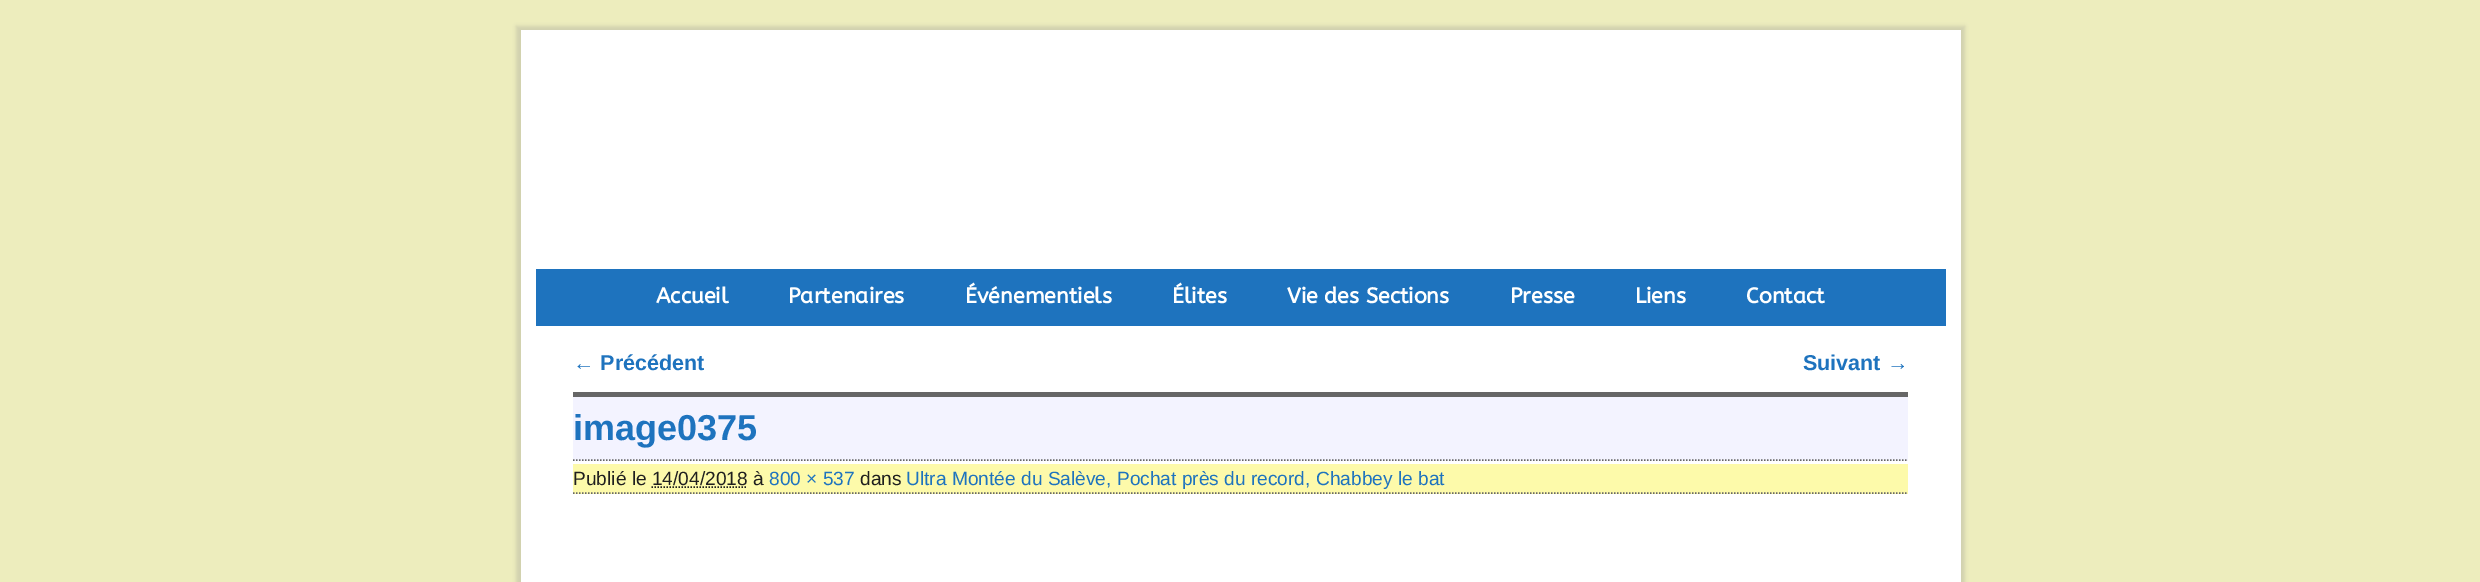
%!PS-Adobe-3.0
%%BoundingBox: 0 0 2480 582
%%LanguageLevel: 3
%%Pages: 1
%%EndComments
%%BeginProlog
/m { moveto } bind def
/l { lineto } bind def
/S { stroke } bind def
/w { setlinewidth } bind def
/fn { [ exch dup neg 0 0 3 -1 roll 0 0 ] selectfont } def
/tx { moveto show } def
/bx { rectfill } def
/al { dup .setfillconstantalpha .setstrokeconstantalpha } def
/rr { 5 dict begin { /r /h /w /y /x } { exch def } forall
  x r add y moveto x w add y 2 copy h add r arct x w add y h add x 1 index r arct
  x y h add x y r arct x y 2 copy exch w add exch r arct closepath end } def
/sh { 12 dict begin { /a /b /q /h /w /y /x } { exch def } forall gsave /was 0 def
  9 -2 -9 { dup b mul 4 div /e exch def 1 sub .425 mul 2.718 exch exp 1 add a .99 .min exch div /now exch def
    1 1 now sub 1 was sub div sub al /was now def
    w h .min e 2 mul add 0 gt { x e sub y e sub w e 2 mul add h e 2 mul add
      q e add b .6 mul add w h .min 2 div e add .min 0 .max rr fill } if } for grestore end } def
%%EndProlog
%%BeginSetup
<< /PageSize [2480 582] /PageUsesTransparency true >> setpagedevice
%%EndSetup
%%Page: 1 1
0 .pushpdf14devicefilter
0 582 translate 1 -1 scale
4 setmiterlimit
0.929 0.929 0.741 setrgbcolor
0 0 2480 582 bx
0.498 setgray
516 26 1449 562 0 2 0.25 sh
1 setgray
521 30 1440 552 bx
0.118 0.451 0.745 setrgbcolor
536 269 1410 57 bx
/ABeeZee-Bold 21.5 fn
1 setgray
(Accueil) 656 303 tx
(Partenaires) 788 303 tx
(Événementiels) 965 303 tx
(Élites) 1172 303 tx
(Vie des Sections) 1287 303 tx
(Presse) 1510 303 tx
(Liens) 1635 303 tx
(Contact) 1746 303 tx
/LiberationSans-Bold 21.5 fn
0.118 0.451 0.745 setrgbcolor
(← Précédent) 573 370 tx
(Suivant →) 1803 370 tx
0.953 0.953 1 setrgbcolor
573 397 1335 64 bx
0.4 setgray
573 392 1335 5 bx
1.5 w
[1.5 1.5] 0 setdash
573 460 m 1908 460 l S
/LiberationSans-Bold 36 fn
0.118 0.451 0.745 setrgbcolor
(image0375) 573 440 tx
0.992 0.98 0.667 setrgbcolor
573 464 1335 30 bx
0.4 setgray
573 493 m 1908 493 l S
/LiberationSans-Regular 19.15 fn
0.122 setgray
(Publié le 14/04/2018 à) 573 485 tx
0.118 0.451 0.745 setrgbcolor
(800 × 537) 769 485 tx
0.122 setgray
(dans) 860 485 tx
0.118 0.451 0.745 setrgbcolor
(Ultra Montée du Salève, Pochat près du record, Chabbey le bat) 906 485 tx
0.122 setgray
651.5 487 m 747.5 487 l S
.poppdf14devicefilter showpage
%%EOF
